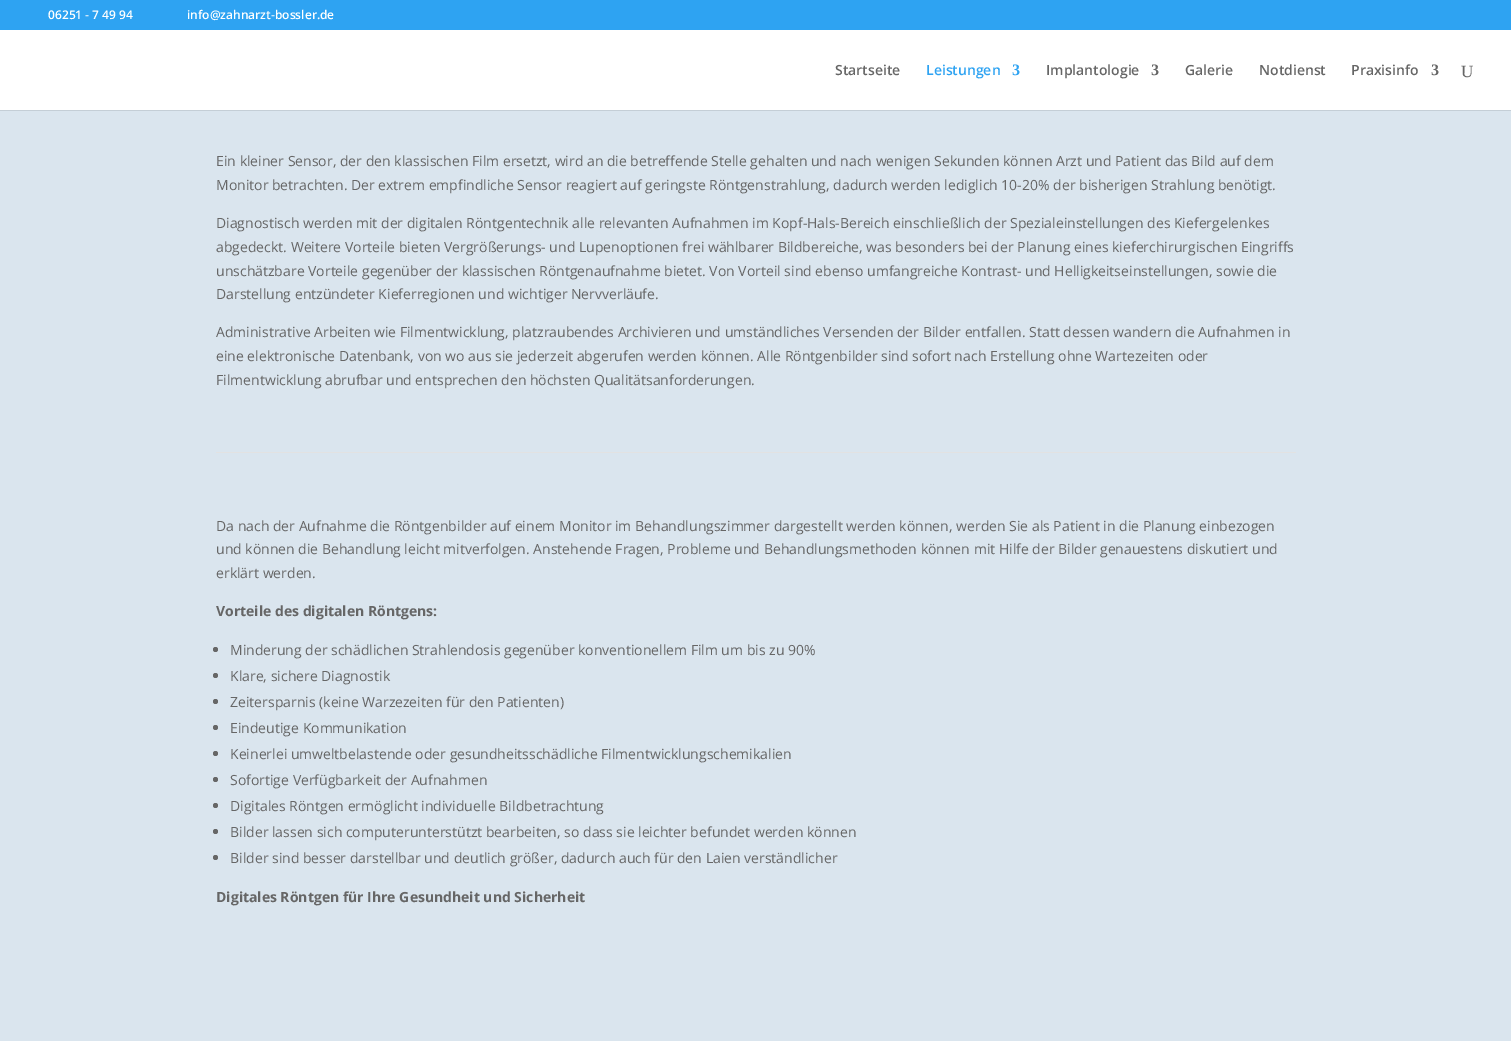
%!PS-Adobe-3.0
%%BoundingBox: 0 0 1511 1041
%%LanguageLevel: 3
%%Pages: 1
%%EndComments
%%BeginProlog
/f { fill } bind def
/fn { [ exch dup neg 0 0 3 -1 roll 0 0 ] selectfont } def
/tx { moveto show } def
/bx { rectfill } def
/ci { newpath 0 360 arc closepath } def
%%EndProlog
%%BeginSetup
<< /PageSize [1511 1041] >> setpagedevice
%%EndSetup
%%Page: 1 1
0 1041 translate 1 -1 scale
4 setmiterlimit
0.855 0.898 0.933 setrgbcolor
0 0 1511 1041 bx
0.18 0.639 0.949 setrgbcolor
0 0 1511 30 bx
/OpenSans-SemiBold 12 fn
1 setgray
(06251 - 7 49 94) 48 19 tx
(info@zahnarzt-bossler.de) 187 19 tx
0.769 0.808 0.839 setrgbcolor
0 110 1511 1 bx
1 setgray
0 30 1511 80 bx
/OpenSans-SemiBold 14 fn
0.4 setgray
(Startseite) 835 75 tx
0.18 0.639 0.949 setrgbcolor
(Leistungen) 926 75 tx
/LiberationSerif-Bold 16 fn
(3) 1012 75 tx
/OpenSans-SemiBold 14 fn
0.4 setgray
(Implantologie) 1046 75 tx
/LiberationSerif-Bold 16 fn
(3) 1151 75 tx
/OpenSans-SemiBold 14 fn
(Galerie) 1185 75 tx
(Notdienst) 1259 75 tx
(Praxisinfo) 1351 75 tx
/LiberationSerif-Bold 16 fn
(3) 1431 75 tx
/LiberationSerif-Regular 17 fn
(U) 1461 77 tx
/OpenSans-Regular 14 fn
(Ein kleiner Sensor, der den klassischen Film ersetzt, wird an die betreffende Stelle gehalten und nach wenigen Sekunden können Arzt und Patient das Bild auf dem) 216 166 tx
(Monitor betrachten. Der extrem empfindliche Sensor reagiert auf geringste Röntgenstrahlung, dadurch werden lediglich 10-20% der bisherigen Strahlung benötigt.) 216 190 tx
(Diagnostisch werden mit der digitalen Röntgentechnik alle relevanten Aufnahmen im Kopf-Hals-Bereich einschließlich der Spezialeinstellungen des Kiefergelenkes) 216 228 tx
(abgedeckt. Weitere Vorteile bieten Vergrößerungs- und Lupenoptionen frei wählbarer Bildbereiche, was besonders bei der Planung eines kieferchirurgischen Eingriffs) 216 252 tx
(unschätzbare Vorteile gegenüber der klassischen Röntgenaufnahme bietet. Von Vorteil sind ebenso umfangreiche Kontrast- und Helligkeitseinstellungen, sowie die) 216 276 tx
(Darstellung entzündeter Kieferregionen und wichtiger Nervverläufe.) 216 299 tx
(Administrative Arbeiten wie Filmentwicklung, platzraubendes Archivieren und umständliches Versenden der Bilder entfallen. Statt dessen wandern die Aufnahmen in) 216 337 tx
(eine elektronische Datenbank, von wo aus sie jederzeit abgerufen werden können. Alle Röntgenbilder sind sofort nach Erstellung ohne Wartezeiten oder) 216 361 tx
(Filmentwicklung abrufbar und entsprechen den höchsten Qualitätsanforderungen.) 216 385 tx
0.886 setgray
216 452 1080 1 bx
0.4 setgray
(Da nach der Aufnahme die Röntgenbilder auf einem Monitor im Behandlungszimmer dargestellt werden können, werden Sie als Patient in die Planung einbezogen) 216 531 tx
(und können die Behandlung leicht mitverfolgen. Anstehende Fragen, Probleme und Behandlungsmethoden können mit Hilfe der Bilder genauestens diskutiert und) 216 554 tx
(erklärt werden.) 216 578 tx
/OpenSans-Bold 14 fn
(Vorteile des digitalen Röntgens:) 216 616 tx
215.5 649.5 2.5 ci f
/OpenSans-Regular 14 fn
(Minderung der schädlichen Strahlendosis gegenüber konventionellem Film um bis zu 90%) 230 655 tx
215.5 675.5 2.5 ci f
(Klare, sichere Diagnostik) 230 681 tx
215.5 701.5 2.5 ci f
(Zeitersparnis \(keine Warzezeiten für den Patienten\)) 230 707 tx
215.5 727.5 2.5 ci f
(Eindeutige Kommunikation) 230 733 tx
215.5 753.5 2.5 ci f
(Keinerlei umweltbelastende oder gesundheitsschädliche Filmentwicklungschemikalien) 230 759 tx
215.5 779.5 2.5 ci f
(Sofortige Verfügbarkeit der Aufnahmen) 230 785 tx
215.5 805.5 2.5 ci f
(Digitales Röntgen ermöglicht individuelle Bildbetrachtung) 230 811 tx
215.5 831.5 2.5 ci f
(Bilder lassen sich computerunterstützt bearbeiten, so dass sie leichter befundet werden können) 230 837 tx
215.5 857.5 2.5 ci f
(Bilder sind besser darstellbar und deutlich größer, dadurch auch für den Laien verständlicher) 230 863 tx
/OpenSans-Bold 14 fn
(Digitales Röntgen für Ihre Gesundheit und Sicherheit) 216 902 tx
showpage
%%EOF
